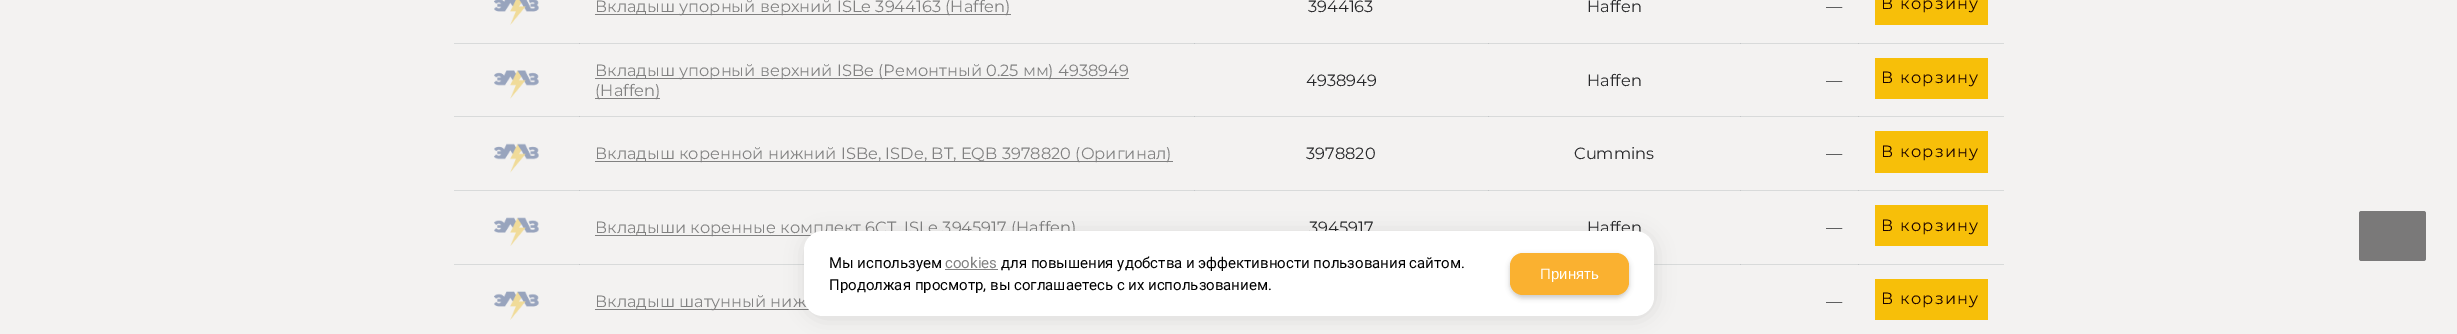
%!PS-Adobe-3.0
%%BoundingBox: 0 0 2457 334
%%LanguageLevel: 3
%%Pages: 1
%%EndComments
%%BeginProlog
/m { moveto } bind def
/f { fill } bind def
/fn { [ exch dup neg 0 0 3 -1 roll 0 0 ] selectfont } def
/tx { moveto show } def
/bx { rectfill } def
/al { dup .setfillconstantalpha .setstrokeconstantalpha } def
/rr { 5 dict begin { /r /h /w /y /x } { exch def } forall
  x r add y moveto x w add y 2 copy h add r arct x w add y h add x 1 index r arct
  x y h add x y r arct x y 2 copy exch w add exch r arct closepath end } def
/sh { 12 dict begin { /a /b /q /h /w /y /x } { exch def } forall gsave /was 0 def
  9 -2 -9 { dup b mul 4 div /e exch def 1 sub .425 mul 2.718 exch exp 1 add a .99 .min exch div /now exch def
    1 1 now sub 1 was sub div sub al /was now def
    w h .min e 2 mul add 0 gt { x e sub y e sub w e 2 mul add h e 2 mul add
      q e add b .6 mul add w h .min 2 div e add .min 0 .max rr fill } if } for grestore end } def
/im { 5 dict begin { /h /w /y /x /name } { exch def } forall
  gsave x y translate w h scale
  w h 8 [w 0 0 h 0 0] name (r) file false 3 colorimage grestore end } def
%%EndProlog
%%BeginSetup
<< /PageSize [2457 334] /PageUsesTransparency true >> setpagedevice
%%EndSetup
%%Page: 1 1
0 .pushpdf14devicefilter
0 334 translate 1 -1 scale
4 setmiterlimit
0.953 0.949 0.945 setrgbcolor
0 0 2457 334 bx
0.847 0.855 0.855 setrgbcolor
454 43 1550 1 bx
0.765 0.776 0.784 setrgbcolor
579 43 1 1 bx
1194 43 1 1 bx
1488 43 1 1 bx
1740 43 1 1 bx
0.847 0.855 0.855 setrgbcolor
454 116 1550 1 bx
0.765 0.776 0.784 setrgbcolor
579 116 1 1 bx
1194 116 1 1 bx
1488 116 1 1 bx
1740 116 1 1 bx
0.847 0.855 0.855 setrgbcolor
454 190 1550 1 bx
0.765 0.776 0.784 setrgbcolor
579 190 1 1 bx
1194 190 1 1 bx
1488 190 1 1 bx
1740 190 1 1 bx
0.847 0.855 0.855 setrgbcolor
454 264 350 1 bx
0.765 0.776 0.784 setrgbcolor
579 264 1 1 bx
0.847 0.855 0.855 setrgbcolor
1654 264 350 1 bx
0.765 0.776 0.784 setrgbcolor
1740 264 1 1 bx
(image0.raw) 494 0 45 25 im
0.506 setgray
595 14 416 1 bx
/Montserrat-Regular 16.25 fn
(Вкладыш упорный верхний ISLe 3944163 \(Haffen\)) 595 12 tx
0.157 0.161 0.169 setrgbcolor
(3944163) 1308 12 tx
(Haffen) 1587 12 tx
(—) 1826 12 tx
0.765 0.776 0.784 setrgbcolor
1858 43 1 1 bx
0.969 0.749 0.035 setrgbcolor
1875 0 113 25 bx
0.102 0.008 0 setrgbcolor
1881 9 m 1.25 0 (В корзину) ashow
(image1.raw) 494 70 45 29 im
0.506 setgray
595 78 534 1 bx
(Вкладыш упорный верхний ISBe \(Ремонтный 0.25 мм\) 4938949) 595 76 tx
595 98 65 1 bx
(\(Haffen\)) 595 96 tx
0.157 0.161 0.169 setrgbcolor
(4938949) 1306 86 tx
(Haffen) 1587 86 tx
(—) 1826 86 tx
0.765 0.776 0.784 setrgbcolor
1858 116 1 1 bx
0.969 0.749 0.035 setrgbcolor
1875 58 113 41 bx
0.102 0.008 0 setrgbcolor
1881 83 m 1.25 0 (В корзину) ashow
(image2.raw) 494 143 45 30 im
0.506 setgray
595 161 578 1 bx
(Вкладыш коренной нижний ISBe, ISDe, BT, EQB 3978820 \(Оригинал\)) 595 159 tx
0.157 0.161 0.169 setrgbcolor
(3978820) 1306 159 tx
(Cummins) 1574 159 tx
(—) 1826 159 tx
0.765 0.776 0.784 setrgbcolor
1858 190 1 1 bx
0.969 0.749 0.035 setrgbcolor
1875 131 113 42 bx
0.102 0.008 0 setrgbcolor
1881 157 m 1.25 0 (В корзину) ashow
(image3.raw) 494 217 45 29 im
0.506 setgray
595 235 217 1 bx
(Вкладыши коренные комплект 6CT, ISLe 3945917 \(Haffen\)) 595 233 tx
0.157 0.161 0.169 setrgbcolor
(3945917) 1309 233 tx
(Haffen) 1587 233 tx
(—) 1826 233 tx
0.765 0.776 0.784 setrgbcolor
1858 264 1 1 bx
0.969 0.749 0.035 setrgbcolor
1875 205 113 41 bx
0.102 0.008 0 setrgbcolor
1881 231 m 1.25 0 (В корзину) ashow
(image4.raw) 494 291 45 29 im
0.506 setgray
595 309 215 1 bx
(Вкладыш шатунный ниж) 595 307 tx
0.157 0.161 0.169 setrgbcolor
(—) 1826 307 tx
0.969 0.749 0.035 setrgbcolor
1875 279 113 41 bx
0.102 0.008 0 setrgbcolor
1881 304 m 1.25 0 (В корзину) ashow
0.478 0.475 0.475 setrgbcolor
2359 211 67 50 2.5 rr f
0 setgray
805 233 850 85 19 9.5 0.1 sh
1 setgray
804 231 850 85 19 rr f
/Roboto-Regular 15 fn
0 setgray
(Мы используем) 829 268 tx
0.506 setgray
(cookies) 945 268 tx
945 269 53 1 bx
0 setgray
(для повышения удобства и эффективности пользования сайтом.) 1001 268 tx
(Продолжая просмотр, вы соглашаетесь с их использованием.) 829 290 tx
1510 255 119 43 13 2.5 0.2 sh
0.98 0.694 0.188 setrgbcolor
1510 253 119 42 13 rr f
/LiberationSans-Regular 15 fn
1 setgray
(Принять) 1540 279 tx
.poppdf14devicefilter showpage
%%EOF
